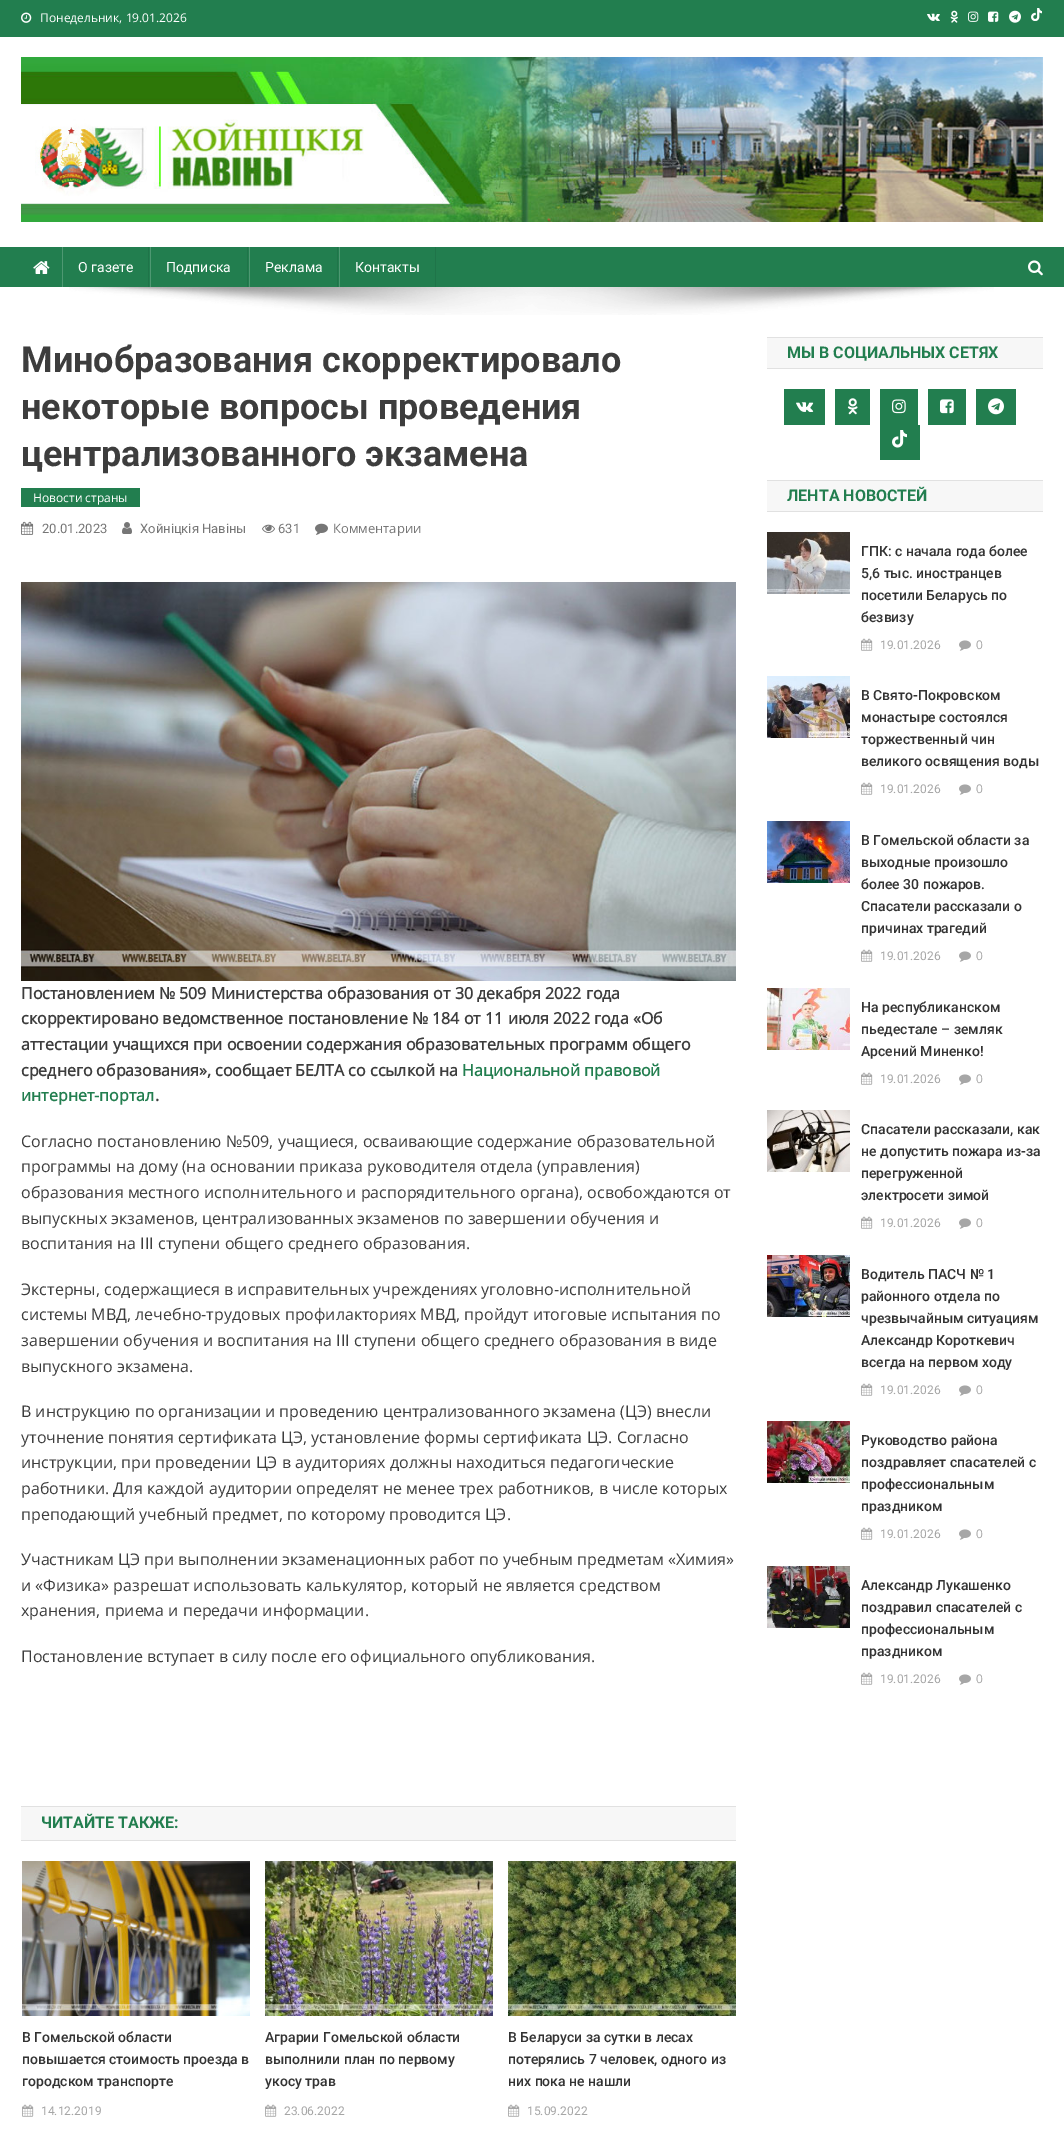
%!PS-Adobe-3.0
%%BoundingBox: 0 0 1064 2151
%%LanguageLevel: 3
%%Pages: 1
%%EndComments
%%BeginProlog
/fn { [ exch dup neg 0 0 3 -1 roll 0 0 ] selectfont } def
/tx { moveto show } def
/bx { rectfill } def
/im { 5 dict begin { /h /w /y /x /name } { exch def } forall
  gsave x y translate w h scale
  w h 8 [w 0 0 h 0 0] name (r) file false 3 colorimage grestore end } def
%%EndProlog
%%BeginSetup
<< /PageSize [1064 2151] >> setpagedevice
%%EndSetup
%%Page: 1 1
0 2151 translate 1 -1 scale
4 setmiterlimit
1 setgray
0 0 1064 2151 bx
0.133 0.494 0.31 setrgbcolor
0 0 1064 37 bx
(image0.raw) 21 12 11 11 im
/OpenSans-Regular 12 fn
1 setgray
(Понедельник, 19.01.2026) 40 22 tx
(image1.raw) 927 13 13 8 im
(image2.raw) 950 10 8 13 im
(image3.raw) 968 11 11 11 im
(image4.raw) 988 11 11 11 im
(image5.raw) 1009 10 12 13 im
(image6.raw) 1031 8 11 13 im
(image7.raw) 21 57 1022 165 im
0.133 0.494 0.31 setrgbcolor
0 247 1064 40 bx
(image8.raw) 33 261 17 13 im
0.122 0.455 0.286 setrgbcolor
148 247 1 40 bx
0.306 0.596 0.447 setrgbcolor
62 247 1 40 bx
/Roboto-Regular 14 fn
1 setgray
(О газете) 78 272 tx
0.122 0.455 0.286 setrgbcolor
247 247 1 40 bx
0.306 0.596 0.447 setrgbcolor
150 247 1 40 bx
1 setgray
(Подписка) 166 272 tx
0.122 0.455 0.286 setrgbcolor
337 247 1 40 bx
0.306 0.596 0.447 setrgbcolor
249 247 1 40 bx
1 setgray
(Реклама) 265 272 tx
0.122 0.455 0.286 setrgbcolor
435 247 1 40 bx
0.306 0.596 0.447 setrgbcolor
339 247 1 40 bx
1 setgray
(Контакты) 355 272 tx
(image9.raw) 1028 260 15 16 im
(image10.raw) 69 287 925 28 im
/Roboto-Bold 36 fn
0.239 setgray
(Минобразования скорректировало) 21 372 tx
(некоторые вопросы проведения) 21 419 tx
(централизованного экзамена) 21 466 tx
0.133 0.494 0.31 setrgbcolor
21 488 119 19 bx
/OpenSans-Regular 12 fn
1 setgray
(Новости страны) 33 502 tx
(image11.raw) 21 521 13 14 im
/Roboto-Regular 13 fn
0.463 setgray
(20.01.2023) 42 533 tx
(image12.raw) 122 522 10 12 im
(Хойнiцкiя Навiны) 140 533 tx
(image13.raw) 262 524 13 9 im
(631) 278 533 tx
(image14.raw) 315 523 13 12 im
/OpenSans-Regular 13 fn
(Комментарии) 333 533 tx
(image15.raw) 21 582 715 399 im
/OpenSans-Bold 16 fn
0.239 setgray
(Постановлением № 509 Министерства образования от 30 декабря 2022 года) 21 999 tx
(скорректировано ведомственное постановление № 184 от 11 июля 2022 года «Об) 21 1024 tx
(аттестации учащихся при освоении содержания образовательных программ общего) 21 1050 tx
(среднего образования», сообщает БЕЛТА со ссылкой на) 21 1076 tx
0.133 0.494 0.31 setrgbcolor
(Национальной правовой) 462 1076 tx
(интернет-портал) 21 1101 tx
0.239 setgray
(.) 155 1101 tx
/OpenSans-Regular 16 fn
(Согласно постановлению №509, учащиеся, осваивающие содержание образовательной) 21 1147 tx
(программы на дому \(на основании приказа руководителя отдела \(управления\)) 21 1172 tx
(образования местного исполнительного и распорядительного органа\), освобождаются от) 21 1198 tx
(выпускных экзаменов, централизованных экзаменов по завершении обучения и) 21 1224 tx
(воспитания на III ступени общего среднего образования.) 21 1249 tx
(Экстерны, содержащиеся в исправительных учреждениях уголовно-исполнительной) 21 1295 tx
(системы МВД, лечебно-трудовых профилакториях МВД, пройдут итоговые испытания по) 21 1320 tx
(завершении обучения и воспитания на III ступени общего среднего образования в виде) 21 1346 tx
(выпускного экзамена.) 21 1372 tx
(В инструкцию по организации и проведению централизованного экзамена \(ЦЭ\) внесли) 21 1417 tx
(уточнение понятия сертификата ЦЭ, установление формы сертификата ЦЭ. Согласно) 21 1443 tx
(инструкции, при проведении ЦЭ в аудиториях должны находиться педагогические) 21 1468 tx
(работники. Для каждой аудитории определят не менее трех работников, в числе которых) 21 1494 tx
(преподающий учебный предмет, по которому проводится ЦЭ.) 21 1520 tx
(Участникам ЦЭ при выполнении экзаменационных работ по учебным предметам «Химия») 21 1565 tx
(и «Физика» разрешат использовать калькулятор, который не является средством) 21 1591 tx
(хранения, приема и передачи информации.) 21 1616 tx
(Постановление вступает в силу после его официального опубликования.) 21 1662 tx
0.969 setgray
21 1807 715 33 bx
0.882 setgray
21 1806 715 1 bx
21 1840 715 1 bx
/Roboto-Bold 16 fn
0.133 0.494 0.31 setrgbcolor
(ЧИТАЙТЕ ТАКЖЕ:) 41 1828 tx
(image16.raw) 22 1861 228 155 im
/Roboto-Medium 14 fn
0.2 setgray
(В Гомельской области) 22 2042 tx
(повышается стоимость проезда в) 22 2064 tx
(городском транспорте) 22 2086 tx
(image17.raw) 22 2104 12 13 im
/Roboto-Regular 12 fn
0.651 setgray
(14.12.2019) 41 2115 tx
(image18.raw) 265 1861 228 155 im
/Roboto-Medium 14 fn
0.2 setgray
(Аграрии Гомельской области) 265 2042 tx
(выполнили план по первому) 265 2064 tx
(укосу трав) 265 2086 tx
(image17.raw) 265 2104 12 13 im
/Roboto-Regular 12 fn
0.651 setgray
(23.06.2022) 284 2115 tx
(image19.raw) 508 1861 228 155 im
/Roboto-Medium 14 fn
0.2 setgray
(В Беларуси за сутки в лесах) 508 2042 tx
(потерялись 7 человек, одного из) 508 2064 tx
(них пока не нашли) 508 2086 tx
(image17.raw) 508 2104 12 13 im
/Roboto-Regular 12 fn
0.651 setgray
(15.09.2022) 527 2115 tx
0.969 setgray
767 338 276 30 bx
0.882 setgray
767 337 276 1 bx
767 368 276 1 bx
/Roboto-Bold 16 fn
0.133 0.494 0.31 setrgbcolor
(МЫ В СОЦИАЛЬНЫХ СЕТЯХ) 787 358 tx
784 389 41 36 bx
(image20.raw) 796 402 18 10 im
835 389 35 36 bx
(image21.raw) 847 398 11 17 im
880 389 38 36 bx
(image22.raw) 892 399 14 15 im
928 389 38 36 bx
(image23.raw) 940 399 14 15 im
976 389 40 36 bx
(image24.raw) 988 398 16 17 im
880 425 40 35 bx
(image25.raw) 892 430 15 18 im
0.969 setgray
767 481 276 30 bx
0.882 setgray
767 480 276 1 bx
767 511 276 1 bx
0.133 0.494 0.31 setrgbcolor
(ЛЕНТА НОВОСТЕЙ) 787 501 tx
(image26.raw) 767 532 83 62 im
/Roboto-Medium 14 fn
0.2 setgray
(ГПК: с начала года более) 861 556 tx
(5,6 тыс. иностранцев) 861 578 tx
(посетили Беларусь по) 861 600 tx
(безвизу) 861 622 tx
(image17.raw) 861 638 12 13 im
/Roboto-Regular 12 fn
0.651 setgray
(19.01.2026) 880 649 tx
(image27.raw) 959 640 12 11 im
/OpenSans-Regular 12 fn
(0) 976 649 tx
(image28.raw) 767 676 83 62 im
/Roboto-Medium 14 fn
0.2 setgray
(В Свято-Покровском) 861 700 tx
(монастыре состоялся) 861 722 tx
(торжественный чин) 861 744 tx
(великого освящения воды) 861 766 tx
(image17.raw) 861 782 12 13 im
/Roboto-Regular 12 fn
0.651 setgray
(19.01.2026) 880 793 tx
(image27.raw) 959 784 12 11 im
/OpenSans-Regular 12 fn
(0) 976 793 tx
(image29.raw) 767 821 83 62 im
/Roboto-Medium 14 fn
0.2 setgray
(В Гомельской области за) 861 845 tx
(выходные произошло) 861 867 tx
(более 30 пожаров.) 861 889 tx
(Спасатели рассказали о) 861 911 tx
(причинах трагедий) 861 933 tx
(image17.raw) 861 949 12 13 im
/Roboto-Regular 12 fn
0.651 setgray
(19.01.2026) 880 960 tx
(image27.raw) 959 951 12 11 im
/OpenSans-Regular 12 fn
(0) 976 960 tx
(image30.raw) 767 988 83 62 im
/Roboto-Medium 14 fn
0.2 setgray
(На республиканском) 861 1012 tx
(пьедестале – земляк) 861 1034 tx
(Арсений Миненко!) 861 1056 tx
(image17.raw) 861 1072 12 13 im
/Roboto-Regular 12 fn
0.651 setgray
(19.01.2026) 880 1083 tx
(image27.raw) 959 1074 12 11 im
/OpenSans-Regular 12 fn
(0) 976 1083 tx
(image31.raw) 767 1110 83 62 im
/Roboto-Medium 14 fn
0.2 setgray
(Спасатели рассказали, как) 861 1134 tx
(не допустить пожара из-за) 861 1156 tx
(перегруженной) 861 1178 tx
(электросети зимой) 861 1200 tx
(image17.raw) 861 1216 12 13 im
/Roboto-Regular 12 fn
0.651 setgray
(19.01.2026) 880 1227 tx
(image27.raw) 959 1218 12 11 im
/OpenSans-Regular 12 fn
(0) 976 1227 tx
(image32.raw) 767 1255 83 62 im
/Roboto-Medium 14 fn
0.2 setgray
(Водитель ПАСЧ № 1) 861 1279 tx
(районного отдела по) 861 1301 tx
(чрезвычайным ситуациям) 861 1323 tx
(Александр Короткевич) 861 1345 tx
(всегда на первом ходу) 861 1367 tx
(image17.raw) 861 1383 12 13 im
/Roboto-Regular 12 fn
0.651 setgray
(19.01.2026) 880 1394 tx
(image27.raw) 959 1385 12 11 im
/OpenSans-Regular 12 fn
(0) 976 1394 tx
(image33.raw) 767 1421 83 62 im
/Roboto-Medium 14 fn
0.2 setgray
(Руководство района) 861 1445 tx
(поздравляет спасателей с) 861 1467 tx
(профессиональным) 861 1489 tx
(праздником) 861 1511 tx
(image17.raw) 861 1527 12 13 im
/Roboto-Regular 12 fn
0.651 setgray
(19.01.2026) 880 1538 tx
(image27.raw) 959 1529 12 11 im
/OpenSans-Regular 12 fn
(0) 976 1538 tx
(image34.raw) 767 1566 83 62 im
/Roboto-Medium 14 fn
0.2 setgray
(Александр Лукашенко) 861 1590 tx
(поздравил спасателей с) 861 1612 tx
(профессиональным) 861 1634 tx
(праздником) 861 1656 tx
(image17.raw) 861 1672 12 13 im
/Roboto-Regular 12 fn
0.651 setgray
(19.01.2026) 880 1683 tx
(image27.raw) 959 1674 12 11 im
/OpenSans-Regular 12 fn
(0) 976 1683 tx
showpage
%%EOF
